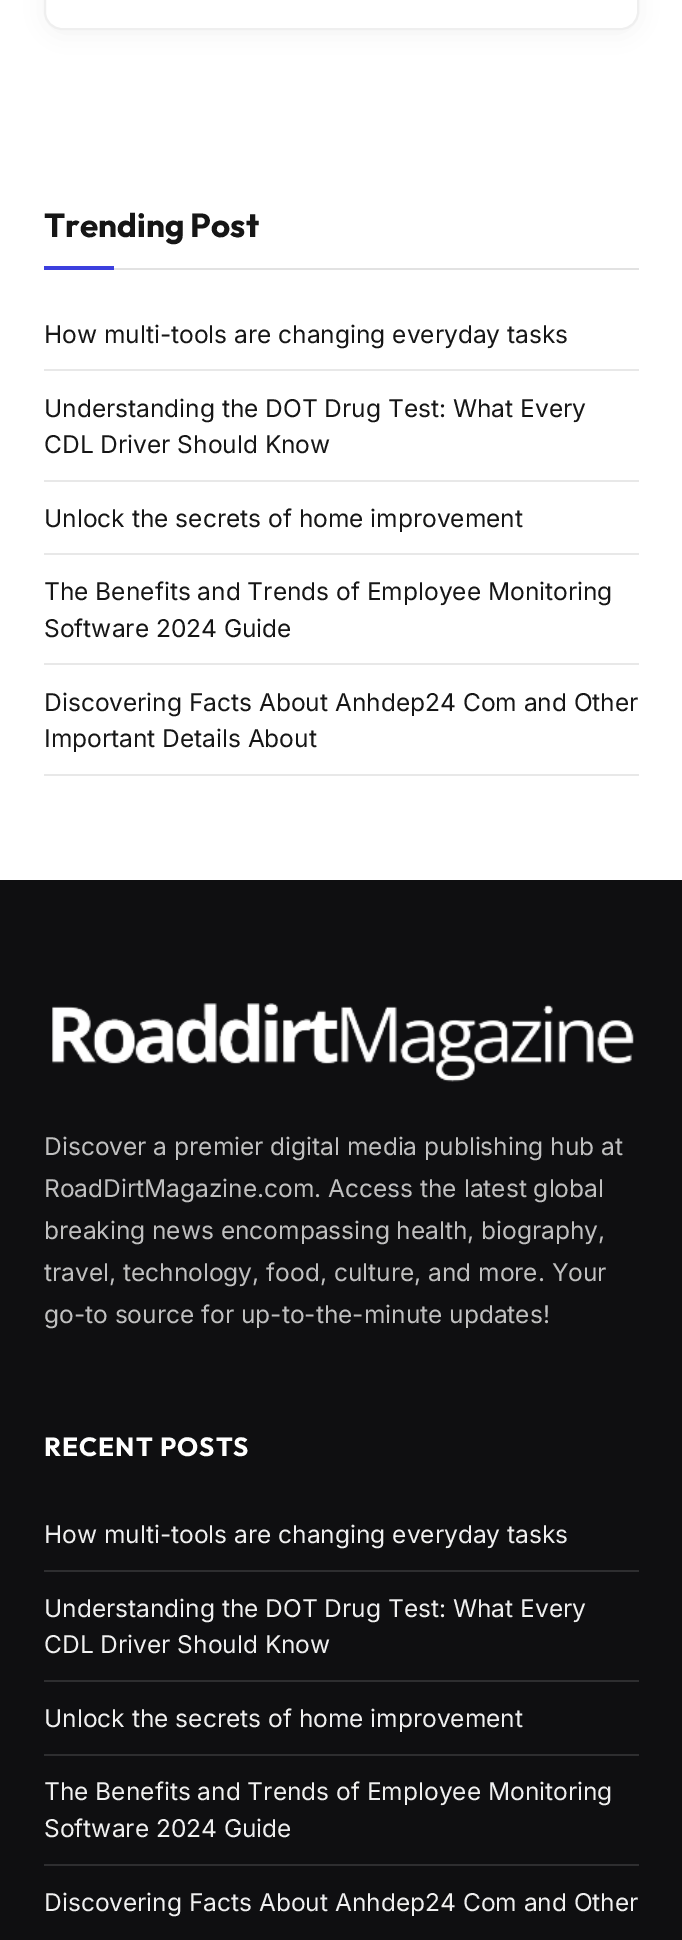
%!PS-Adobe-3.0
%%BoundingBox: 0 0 682 1940
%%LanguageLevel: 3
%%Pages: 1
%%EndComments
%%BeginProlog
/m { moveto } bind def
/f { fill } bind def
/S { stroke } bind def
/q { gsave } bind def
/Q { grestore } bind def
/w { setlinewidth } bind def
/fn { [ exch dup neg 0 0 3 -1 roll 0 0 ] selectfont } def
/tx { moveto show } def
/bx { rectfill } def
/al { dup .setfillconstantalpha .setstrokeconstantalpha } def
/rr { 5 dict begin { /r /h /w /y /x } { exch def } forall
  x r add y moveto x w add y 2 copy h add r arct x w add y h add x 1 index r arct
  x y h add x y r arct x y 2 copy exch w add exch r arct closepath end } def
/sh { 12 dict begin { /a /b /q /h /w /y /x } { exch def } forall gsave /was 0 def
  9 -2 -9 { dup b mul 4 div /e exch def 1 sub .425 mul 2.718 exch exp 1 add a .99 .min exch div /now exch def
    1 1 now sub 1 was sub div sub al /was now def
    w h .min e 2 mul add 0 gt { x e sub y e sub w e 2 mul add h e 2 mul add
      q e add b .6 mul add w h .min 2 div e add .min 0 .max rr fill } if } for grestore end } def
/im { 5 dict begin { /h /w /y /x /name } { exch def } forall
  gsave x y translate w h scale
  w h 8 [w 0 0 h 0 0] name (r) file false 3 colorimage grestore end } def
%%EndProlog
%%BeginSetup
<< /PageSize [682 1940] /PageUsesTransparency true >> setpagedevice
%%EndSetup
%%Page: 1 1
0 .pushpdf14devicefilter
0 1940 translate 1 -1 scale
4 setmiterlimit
1 setgray
0 0 682 1940 bx
0 setgray
46 -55 591 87 16 13 0.06 sh
1 setgray
45 -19 593 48 17 rr q f Q
0.937 setgray
2 w
S
0.886 setgray
114 268 525 2 bx
/Outfit-Bold 33.25 fn
0.086 setgray
(Trending Post) 44 237 tx
0.235 0.247 0.871 setrgbcolor
44 266 70 4 bx
0.91 setgray
44 369 595 2 bx
/Inter-Regular 24.5 fn
0.086 setgray
(How multi-tools are changing everyday tasks) 44 343 tx
0.91 setgray
44 480 595 2 bx
0.086 setgray
(Understanding the DOT Drug Test: What Every) 44 417 tx
(CDL Driver Should Know) 44 453 tx
0.91 setgray
44 553 595 2 bx
0.086 setgray
(Unlock the secrets of home improvement) 44 527 tx
0.91 setgray
44 663 595 2 bx
0.086 setgray
(The Benefits and Trends of Employee Monitoring) 44 600 tx
(Software 2024 Guide) 44 637 tx
0.91 setgray
44 774 595 2 bx
0.086 setgray
(Discovering Facts About Anhdep24 Com and Other) 44 711 tx
(Important Details About) 44 747 tx
0.059 0.059 0.067 setrgbcolor
0 880 682 1060 bx
(image0.raw) 52 1003 582 79 im
0.753 setgray
(Discover a premier digital media publishing hub at) 44 1155 tx
(RoadDirtMagazine.com. Access the latest global) 44 1197 tx
(breaking news encompassing health, biography,) 44 1239 tx
(travel, technology, food, culture, and more. Your) 44 1281 tx
(go-to source for up-to-the-minute updates!) 44 1323 tx
/Outfit-Bold 26.25 fn
1 setgray
44 1456 m 1 0 (RECENT POSTS) ashow
0.18 0.18 0.188 setrgbcolor
44 1570 595 2 bx
/Inter-Regular 24.5 fn
0.941 setgray
(How multi-tools are changing everyday tasks) 44 1543 tx
0.18 0.18 0.188 setrgbcolor
44 1680 595 2 bx
0.941 setgray
(Understanding the DOT Drug Test: What Every) 44 1617 tx
(CDL Driver Should Know) 44 1653 tx
0.18 0.18 0.188 setrgbcolor
44 1754 595 2 bx
0.941 setgray
(Unlock the secrets of home improvement) 44 1727 tx
0.18 0.18 0.188 setrgbcolor
44 1864 595 2 bx
0.941 setgray
(The Benefits and Trends of Employee Monitoring) 44 1800 tx
(Software 2024 Guide) 44 1837 tx
(Discovering Facts About Anhdep24 Com and Other) 44 1911 tx
.poppdf14devicefilter showpage
%%EOF
